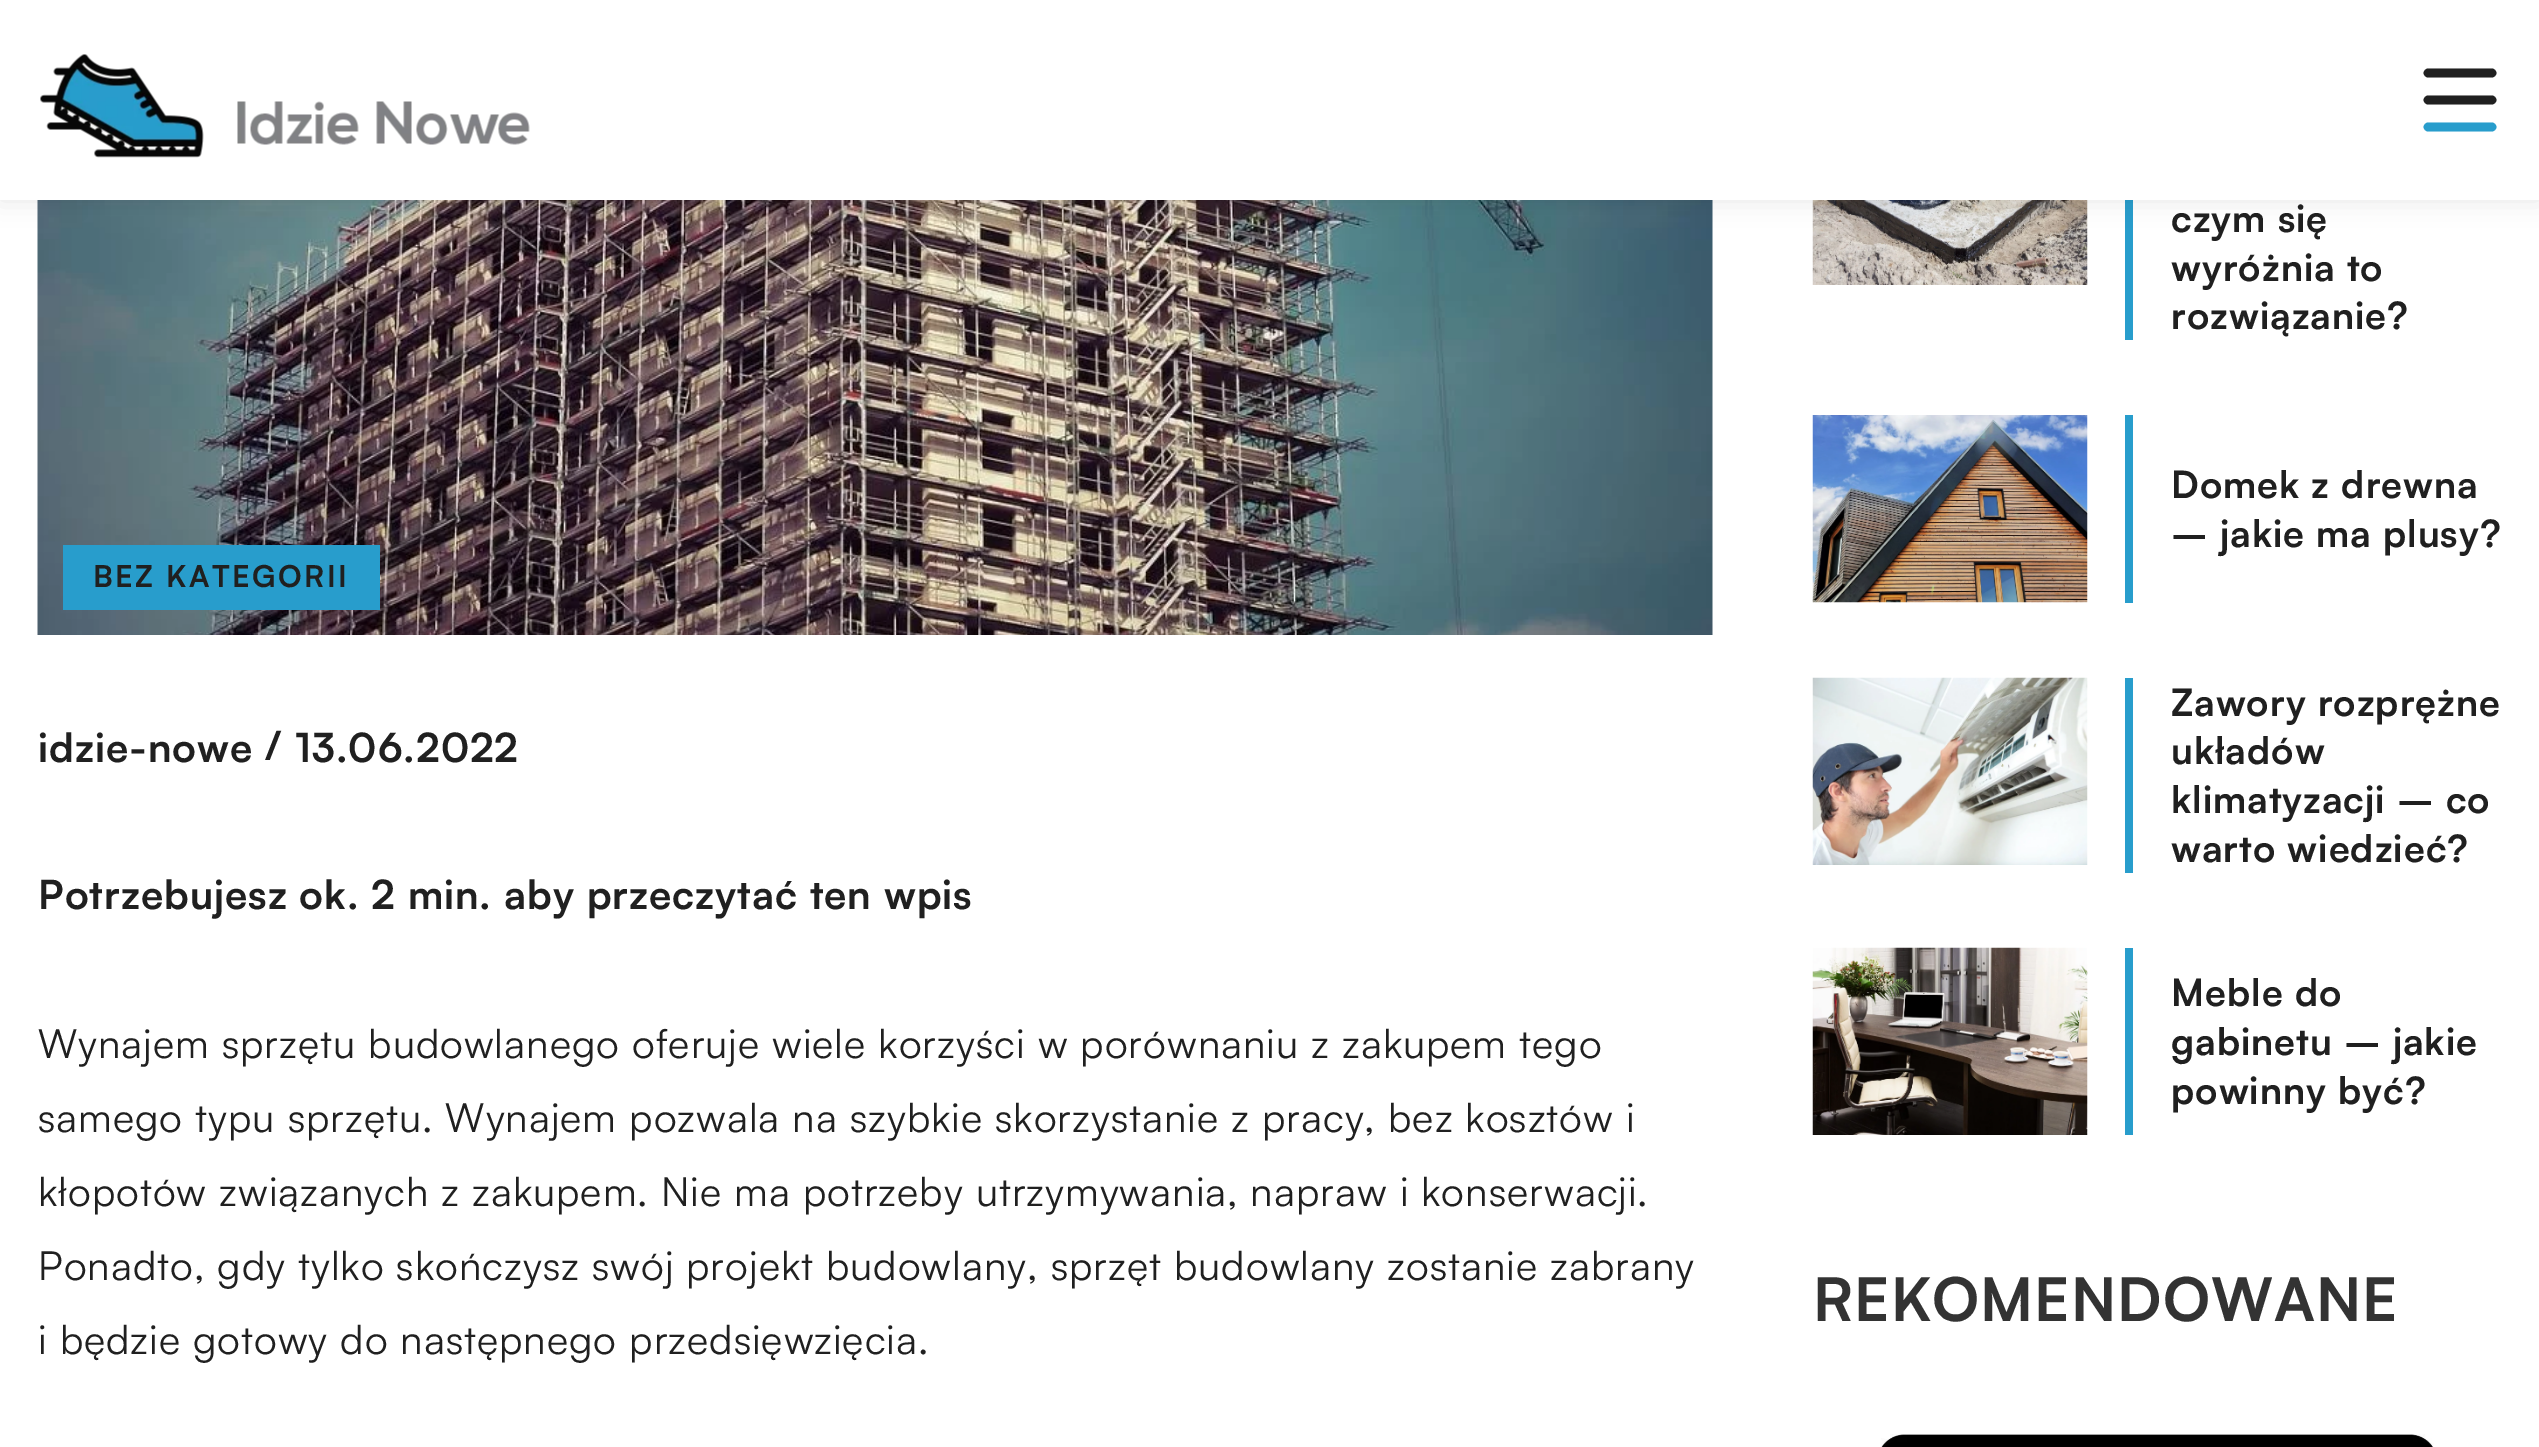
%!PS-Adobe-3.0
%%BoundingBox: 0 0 2539 1447
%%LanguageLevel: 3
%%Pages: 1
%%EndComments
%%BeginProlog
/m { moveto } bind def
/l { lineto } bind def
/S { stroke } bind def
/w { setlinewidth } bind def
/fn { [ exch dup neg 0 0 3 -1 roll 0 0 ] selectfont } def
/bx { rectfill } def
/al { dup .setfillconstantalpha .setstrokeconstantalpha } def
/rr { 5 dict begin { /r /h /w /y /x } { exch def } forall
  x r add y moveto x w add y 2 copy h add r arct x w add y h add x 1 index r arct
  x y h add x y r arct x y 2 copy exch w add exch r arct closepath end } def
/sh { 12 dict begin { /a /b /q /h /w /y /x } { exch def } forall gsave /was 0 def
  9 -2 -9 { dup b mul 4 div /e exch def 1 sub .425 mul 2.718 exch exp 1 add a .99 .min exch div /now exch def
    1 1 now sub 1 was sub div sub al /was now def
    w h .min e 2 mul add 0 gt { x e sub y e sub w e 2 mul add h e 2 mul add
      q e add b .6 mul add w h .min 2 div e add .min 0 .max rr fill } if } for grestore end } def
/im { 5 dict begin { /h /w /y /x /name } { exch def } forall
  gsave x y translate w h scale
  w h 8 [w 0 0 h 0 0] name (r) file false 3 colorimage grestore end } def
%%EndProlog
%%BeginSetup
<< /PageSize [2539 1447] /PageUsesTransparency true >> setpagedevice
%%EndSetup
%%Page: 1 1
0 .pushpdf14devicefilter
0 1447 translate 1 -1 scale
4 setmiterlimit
1 setgray
0 0 2539 1447 bx
(image1.raw) 37 200 1676 435 im
(image2.raw) 1812 200 276 85 im
0.157 0.616 0.8 setrgbcolor
2125 200 8 140 bx
0 setgray
0 0 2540 200 0 12.5 0.1 sh
1 setgray
0 0 2539 200 bx
(image0.raw) 40 54 490 104 im
0.125 setgray
8.8 w
1 setlinecap
2428 73 m 2492 73 l S
2428 100 m 2492 100 l S
0.157 0.616 0.8 setrgbcolor
2492 127 m 2428 127 l S
63 545 317 65 bx
/Satoshi-Bold 30 fn
0.125 setgray
93 587 m 2.5 0 (BEZ KATEGORII) ashow
/Satoshi-Bold 40 fn
38 762 m 1 0 (idzie-nowe) ashow
265 760 m 1 0 (/) ashow
295 762 m 1 0 (13.06.2022) ashow
38 909 m 1 0 (Potrzebujesz ok. 2 min. aby przeczytać ten wpis) ashow
/Satoshi-Regular 40 fn
38 1058 m 1 0 (Wynajem sprzętu budowlanego oferuje wiele korzyści w porównaniu z zakupem tego) ashow
38 1132 m 1 0 (samego typu sprzętu. Wynajem pozwala na szybkie skorzystanie z pracy, bez kosztów i) ashow
38 1206 m 1 0 (kłopotów związanych z zakupem. Nie ma potrzeby utrzymywania, napraw i konserwacji.) ashow
38 1280 m 1 0 (Ponadto, gdy tylko skończysz swój projekt budowlany, sprzęt budowlany zostanie zabrany) ashow
38 1354 m 1 0 (i będzie gotowy do następnego przedsięwzięcia.) ashow
/Satoshi-Bold 37.5 fn
2171 232 m 1 0 (czym się) ashow
2171 281 m 1 0 (wyróżnia to) ashow
2171 329 m 1 0 (rozwiązanie?) ashow
(image3.raw) 1812 415 276 188 im
0.157 0.616 0.8 setrgbcolor
2125 415 8 188 bx
0.125 setgray
2171 498 m 1 0 (Domek z drewna) ashow
2171 547 m 1 0 (– jakie ma plusy?) ashow
(image4.raw) 1812 677 276 188 im
0.157 0.616 0.8 setrgbcolor
2125 678 8 195 bx
0.125 setgray
2171 716 m 1 0 (Zawory rozprężne) ashow
2171 764 m 1 0 (układów) ashow
2171 813 m 1 0 (klimatyzacji – co) ashow
2171 862 m 1 0 (warto wiedzieć?) ashow
(image5.raw) 1812 947 276 188 im
0.157 0.616 0.8 setrgbcolor
2125 948 8 187 bx
0.125 setgray
2171 1006 m 1 0 (Meble do) ashow
2171 1055 m 1 0 (gabinetu – jakie) ashow
2171 1104 m 1 0 (powinny być?) ashow
/Satoshi-Bold 60 fn
0.2 setgray
1813 1321 m 1 0 (REKOMENDOWANE) ashow
(image6.raw) 1881 1434 553 13 im
.poppdf14devicefilter showpage
%%EOF
